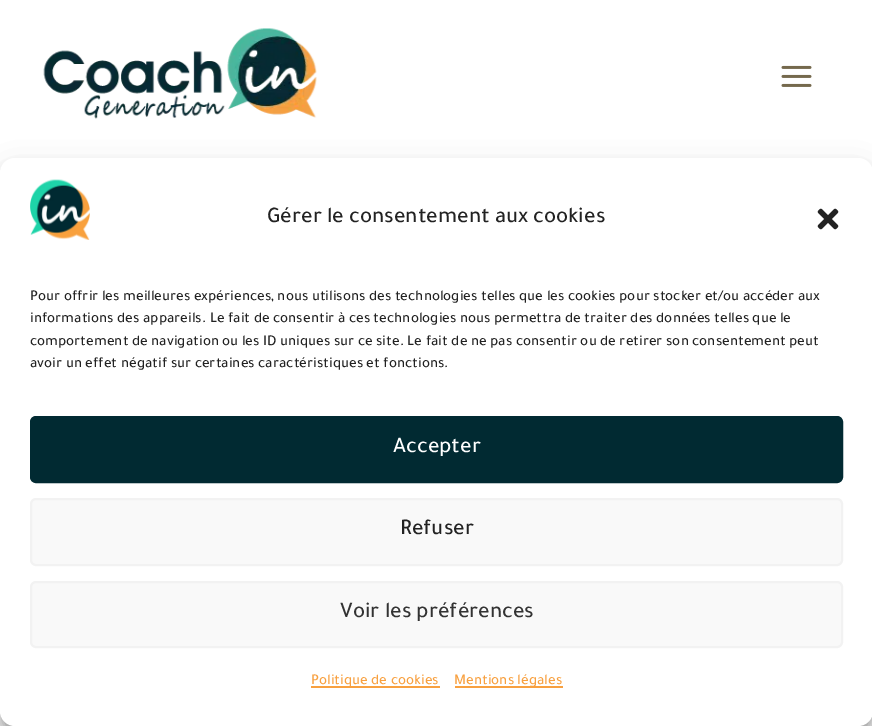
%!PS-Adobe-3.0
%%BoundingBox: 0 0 872 726
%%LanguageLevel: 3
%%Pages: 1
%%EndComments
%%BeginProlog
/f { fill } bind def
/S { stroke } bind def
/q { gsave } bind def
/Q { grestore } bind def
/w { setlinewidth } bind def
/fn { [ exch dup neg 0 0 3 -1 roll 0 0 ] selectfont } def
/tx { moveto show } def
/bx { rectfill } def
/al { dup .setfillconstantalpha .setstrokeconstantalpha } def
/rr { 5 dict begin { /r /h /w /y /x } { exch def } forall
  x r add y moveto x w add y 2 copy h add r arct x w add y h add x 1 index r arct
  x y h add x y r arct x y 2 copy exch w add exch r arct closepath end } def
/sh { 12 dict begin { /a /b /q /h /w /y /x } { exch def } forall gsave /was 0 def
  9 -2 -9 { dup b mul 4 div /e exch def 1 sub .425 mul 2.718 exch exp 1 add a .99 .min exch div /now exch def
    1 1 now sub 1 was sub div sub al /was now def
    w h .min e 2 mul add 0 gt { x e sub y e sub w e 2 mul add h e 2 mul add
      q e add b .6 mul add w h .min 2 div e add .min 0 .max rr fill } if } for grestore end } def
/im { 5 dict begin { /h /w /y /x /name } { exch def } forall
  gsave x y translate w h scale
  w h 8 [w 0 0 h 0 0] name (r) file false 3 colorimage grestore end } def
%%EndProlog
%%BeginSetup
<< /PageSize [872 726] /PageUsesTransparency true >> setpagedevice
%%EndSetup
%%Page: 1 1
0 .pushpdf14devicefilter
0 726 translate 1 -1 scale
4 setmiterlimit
1 setgray
0 0 872 726 bx
(image0.raw) 43 28 274 91 im
(image1.raw) 781 65 31 22 im
0 setgray
0 167 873 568 15 4.5 0.23 sh
0 173 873 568 15 15 0.19 sh
1 setgray
0 158 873 568 15 rr f
(image2.raw) 30 179 60 61 im
/Tajawal-Medium 22.5 fn
0.133 setgray
(Gérer le consentement aux cookies) 267 222 tx
(image3.raw) 817 208 22 22 im
/Tajawal-Medium 15 fn
(Pour offrir les meilleures expériences, nous utilisons des technologies telles que les cookies pour stocker et/ou accéder aux) 30 300 tx
(informations des appareils. Le fait de consentir à ces technologies nous permettra de traiter des données telles que le) 30 322 tx
(comportement de navigation ou les ID uniques sur ce site. Le fait de ne pas consentir ou de retirer son consentement peut) 30 345 tx
(avoir un effet négatif sur certaines caractéristiques et fonctions.) 30 367 tx
0.004 0.165 0.196 setrgbcolor
31 417 811 65 5 rr q f Q
2 w
S
/Tajawal-Medium 22.5 fn
1 setgray
(Accepter) 393 452 tx
0.976 setgray
31 499 811 66 5 rr q f Q
0.949 setgray
S
0.133 setgray
(Refuser) 400 534 tx
0.976 setgray
31 582 811 65 5 rr q f Q
0.949 setgray
S
0.2 setgray
(Voir les préférences) 340 617 tx
0.973 0.627 0.247 setrgbcolor
311 686 129 2 bx
/Tajawal-Medium 15 fn
(Politique de cookies) 311 684 tx
455 686 108 2 bx
(Mentions légales) 454 684 tx
.poppdf14devicefilter showpage
%%EOF
